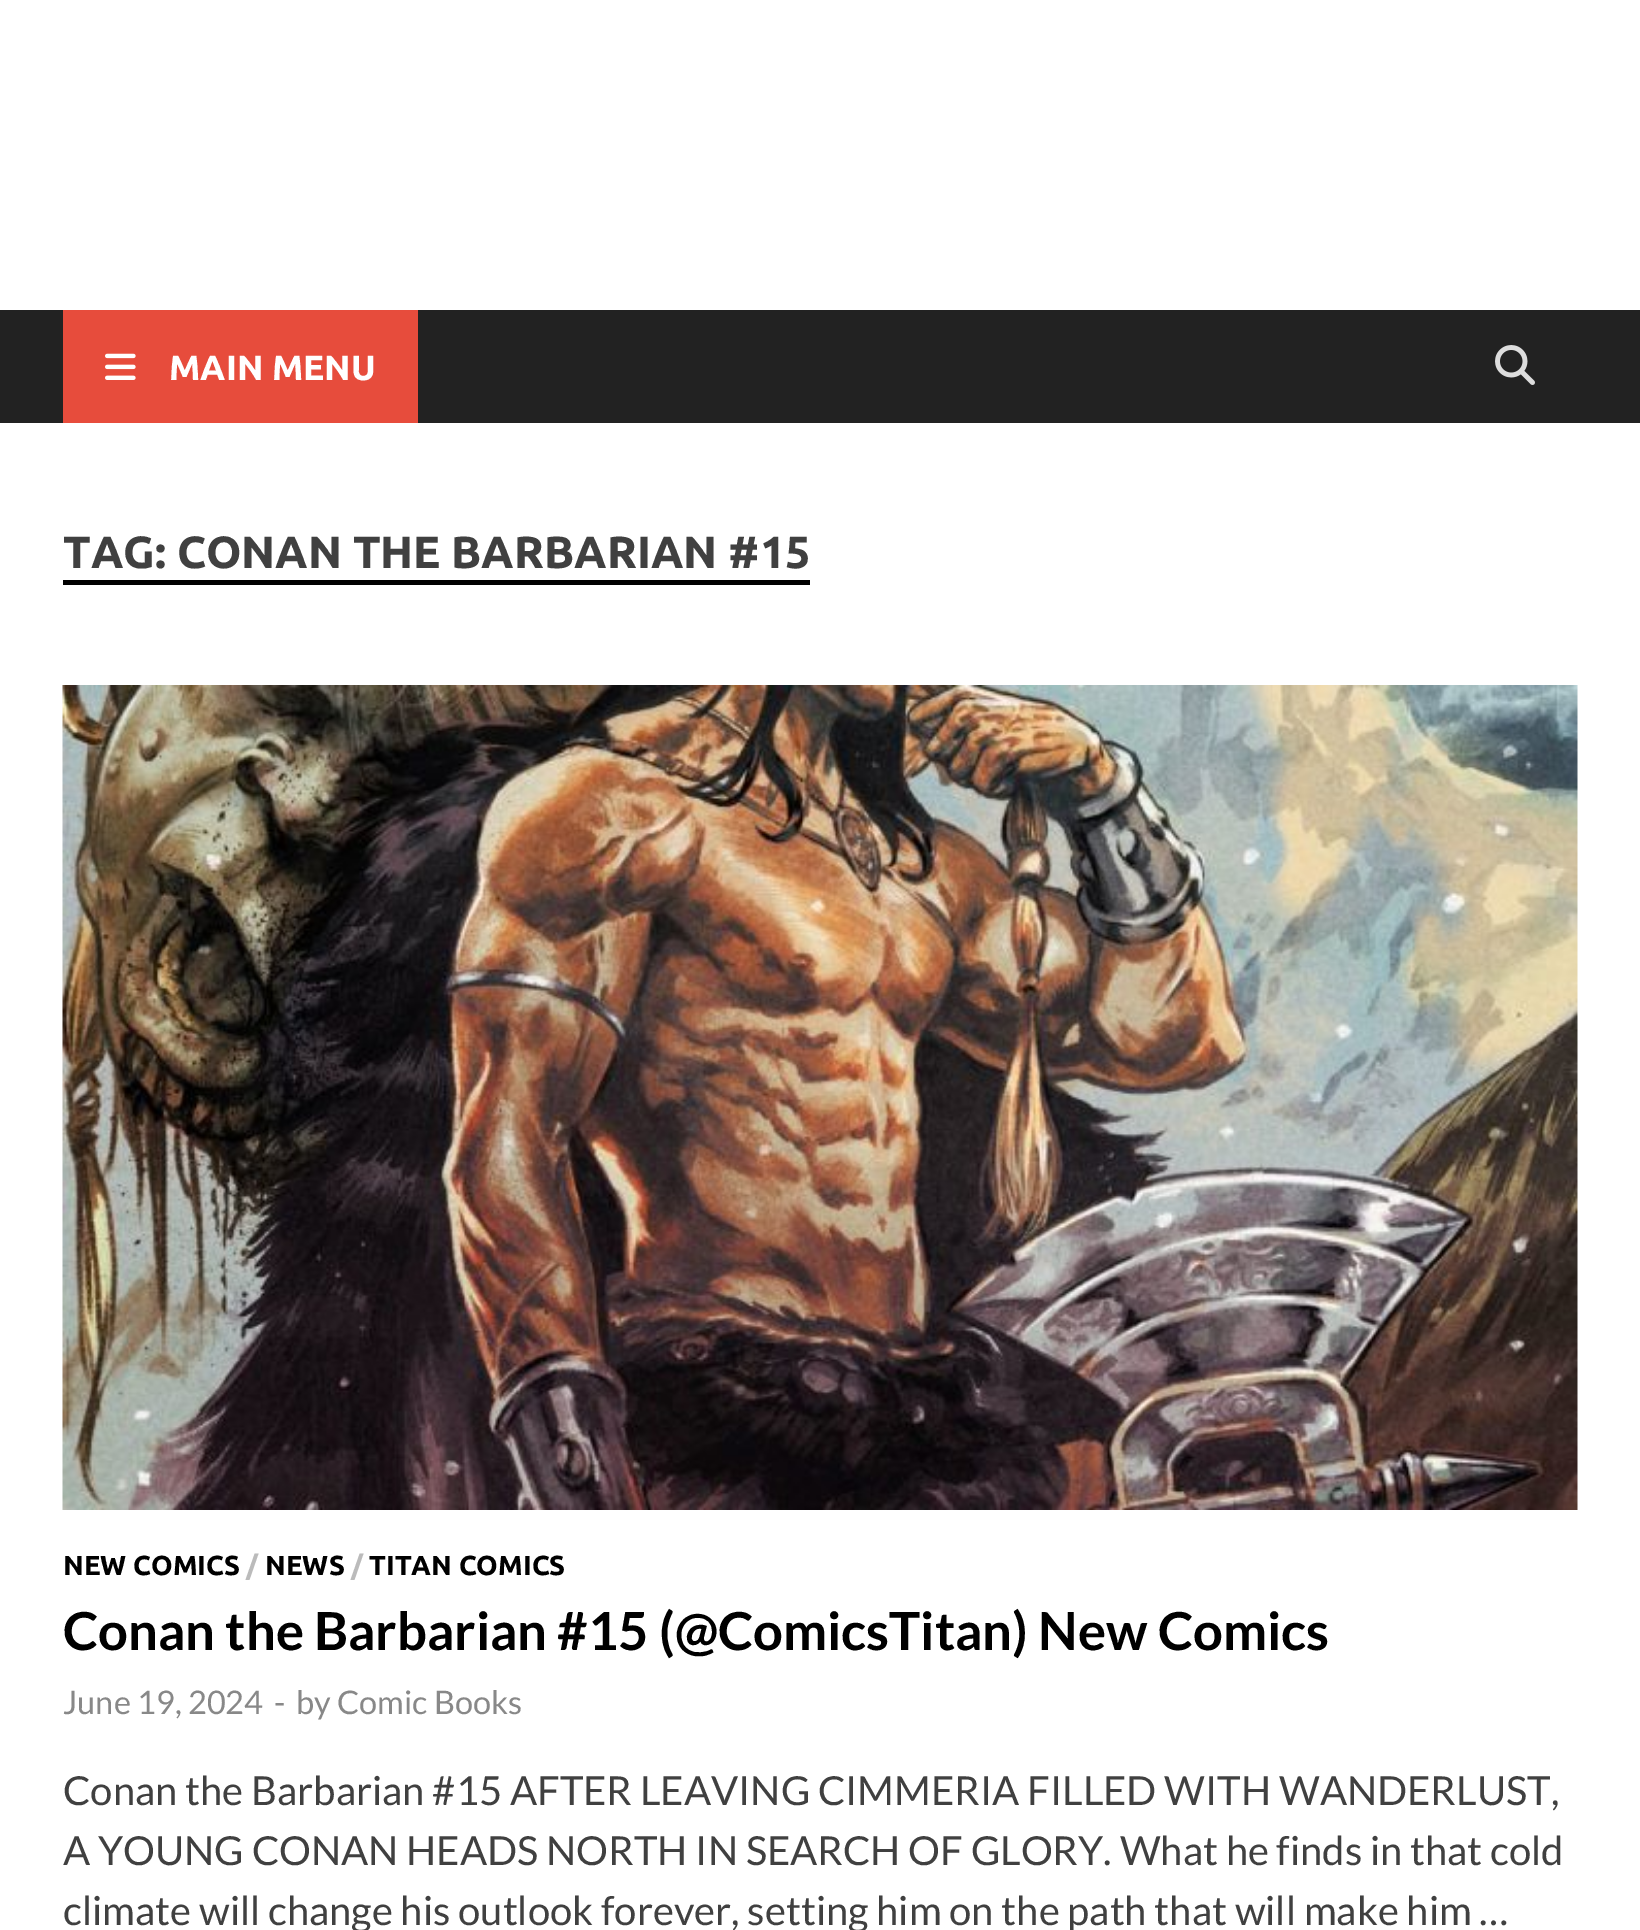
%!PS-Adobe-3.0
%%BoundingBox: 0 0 1640 1930
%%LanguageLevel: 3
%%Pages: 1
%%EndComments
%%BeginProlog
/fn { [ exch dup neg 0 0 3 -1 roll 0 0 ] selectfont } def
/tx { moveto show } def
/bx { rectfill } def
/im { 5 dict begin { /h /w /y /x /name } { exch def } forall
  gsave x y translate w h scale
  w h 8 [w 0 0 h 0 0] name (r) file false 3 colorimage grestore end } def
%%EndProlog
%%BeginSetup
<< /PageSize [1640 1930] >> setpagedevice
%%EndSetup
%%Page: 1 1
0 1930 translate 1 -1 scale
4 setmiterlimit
1 setgray
0 0 1640 1930 bx
0.133 setgray
0 310 1640 113 bx
0.906 0.298 0.235 setrgbcolor
63 310 355 113 bx
(image0.raw) 105 353 31 27 im
/Ubuntu-Bold 35 fn
1 setgray
(MAIN MENU) 169 380 tx
(image1.raw) 1495 345 40 40 im
/Ubuntu-Bold 45 fn
0.251 setgray
(TAG: CONAN THE BARBARIAN #15) 63 568 tx
0 setgray
63 580 747 5 bx
(image2.raw) 62 685 1516 825 im
/Ubuntu-Bold 27.5 fn
(NEW COMICS) 63 1575 tx
0.733 setgray
(/) 246 1575 tx
0 setgray
(NEWS) 265 1575 tx
0.733 setgray
(/) 351 1575 tx
0 setgray
(TITAN COMICS) 369 1575 tx
/Lato-Bold 52.5 fn
(Conan the Barbarian #15 \(@ComicsTitan\) New Comics) 63 1650 tx
/Lato-Regular 32.5 fn
0.533 setgray
(June 19, 2024) 63 1714 tx
(-) 274 1714 tx
(by Comic Books) 296 1714 tx
/Lato-Regular 40 fn
0.251 setgray
(Conan the Barbarian #15 AFTER LEAVING CIMMERIA FILLED WITH WANDERLUST,) 63 1805 tx
(A YOUNG CONAN HEADS NORTH IN SEARCH OF GLORY. What he finds in that cold) 63 1865 tx
(climate will change his outlook forever, setting him on the path that will make him …) 63 1925 tx
showpage
%%EOF
